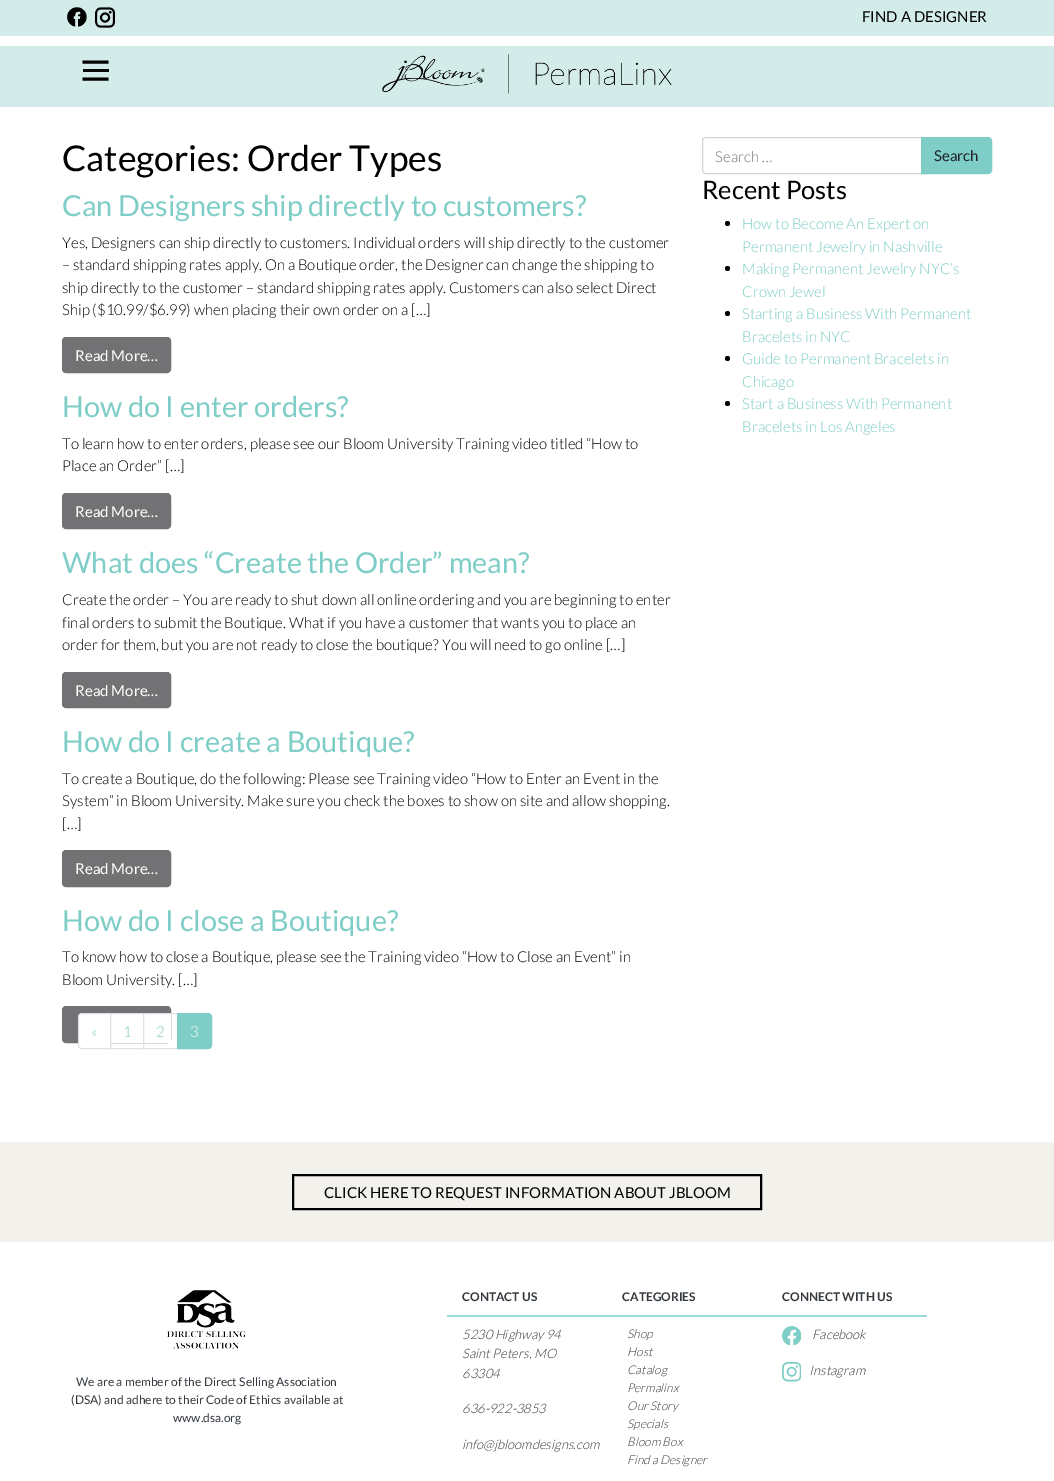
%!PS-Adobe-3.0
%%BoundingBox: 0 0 1054 1481
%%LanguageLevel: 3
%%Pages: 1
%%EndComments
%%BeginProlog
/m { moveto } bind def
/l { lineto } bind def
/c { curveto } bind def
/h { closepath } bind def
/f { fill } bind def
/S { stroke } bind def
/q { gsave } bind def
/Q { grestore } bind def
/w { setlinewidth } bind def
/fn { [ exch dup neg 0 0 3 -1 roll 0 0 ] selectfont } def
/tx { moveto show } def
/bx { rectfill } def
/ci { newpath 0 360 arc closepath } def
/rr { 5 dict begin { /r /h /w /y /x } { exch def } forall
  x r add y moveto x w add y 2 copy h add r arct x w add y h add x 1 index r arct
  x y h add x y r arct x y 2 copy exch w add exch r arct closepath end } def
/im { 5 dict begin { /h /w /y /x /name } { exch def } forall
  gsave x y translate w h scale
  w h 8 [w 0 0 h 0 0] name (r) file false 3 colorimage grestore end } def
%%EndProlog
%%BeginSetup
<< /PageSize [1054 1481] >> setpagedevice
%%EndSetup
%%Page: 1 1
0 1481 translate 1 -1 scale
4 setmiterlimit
1 setgray
0 0 1054 1481 bx
0.827 0.925 0.918 setrgbcolor
0 0 1054 36 bx
(image0.raw) 67 7 20 20 im
(image1.raw) 95 7 20 21 im
/Lato-Regular 15 fn
0 setgray
(FIND A DESIGNER) 862 22 tx
0.827 0.925 0.918 setrgbcolor
0 46 1054 61 bx
0.027 0.031 0.031 setrgbcolor
83 69 26 3 bx
0 setgray
2.9 w
82.5 62 m 108.5 62 l 82.5 79 m 108.5 79 l S
(image2.raw) 382 54 290 40 im
/Lato-Regular 35.5 fn
(Categories: Order Types) 62 171 tx
/Lato-Regular 28.9 fn
0.494 0.804 0.776 setrgbcolor
(Can Designers ship directly to customers?) 62 216 tx
/Lato-Light 15 fn
0 setgray
(Yes, Designers can ship directly to customers. Individual orders will ship directly to the customer) 62 248 tx
(– standard shipping rates apply. On a Boutique order, the Designer can change the shipping to) 62 270 tx
(ship directly to the customer – standard shipping rates apply. Customers can also select Direct) 62 293 tx
(Ship \($10.99/$6.99\) when placing their own order on a […]) 62 315 tx
0.447 0.443 0.451 setrgbcolor
62.5 337.5 108 35 3.5 rr q f Q
1 w
S
/Lato-Regular 15 fn
1 setgray
(Read More…) 75 361 tx
/Lato-Regular 28.9 fn
0.494 0.804 0.776 setrgbcolor
(How do I enter orders?) 62 417 tx
/Lato-Light 15 fn
0 setgray
(To learn how to enter orders, please see our Bloom University Training video titled “How to) 62 449 tx
(Place an Order” […]) 62 471 tx
0.447 0.443 0.451 setrgbcolor
62.5 493.5 108 35 3.5 rr q f Q
S
/Lato-Regular 15 fn
1 setgray
(Read More…) 75 517 tx
/Lato-Regular 28.9 fn
0.494 0.804 0.776 setrgbcolor
(What does “Create the Order” mean?) 62 573 tx
/Lato-Light 15 fn
0 setgray
(Create the order – You are ready to shut down all online ordering and you are beginning to enter) 62 605 tx
(final orders to submit the Boutique. What if you have a customer that wants you to place an) 62 628 tx
(order for them, but you are not ready to close the boutique? You will need to go online […]) 62 650 tx
0.447 0.443 0.451 setrgbcolor
62.5 672.5 108 35 3.5 rr q f Q
S
/Lato-Regular 15 fn
1 setgray
(Read More…) 75 696 tx
/Lato-Regular 28.9 fn
0.494 0.804 0.776 setrgbcolor
(How do I create a Boutique?) 62 752 tx
/Lato-Light 15 fn
0 setgray
(To create a Boutique, do the following: Please see Training video “How to Enter an Event in the) 62 784 tx
(System” in Bloom University. Make sure you check the boxes to show on site and allow shopping.) 62 806 tx
([…]) 62 829 tx
0.447 0.443 0.451 setrgbcolor
62.5 850.5 108 36 3.5 rr q f Q
S
/Lato-Regular 15 fn
1 setgray
(Read More…) 75 874 tx
/Lato-Regular 28.9 fn
0.494 0.804 0.776 setrgbcolor
(How do I close a Boutique?) 62 931 tx
/Lato-Light 15 fn
0 setgray
(To know how to close a Boutique, please see the Training video “How to Close an Event” in) 62 962 tx
(Bloom University. […]) 62 985 tx
0.447 0.443 0.451 setrgbcolor
62.5 1006.5 108 36 3.5 rr q f Q
S
1 setgray
82 1013.5 m 110.5 1013.5 l 110.5 1048.5 l 82 1048.5 l 80 1048.5 78.5 1047 78.5 1045 c 78.5 1017 l 78.5 1015 80 1013.5 82 1013.5 c h q f Q
0.871 0.886 0.902 setrgbcolor
S
0.494 0.804 0.776 setrgbcolor
(«) 91 1037 tx
1 setgray
111 1014 32 29 bx
0.871 0.886 0.902 setrgbcolor
110.5 1013.5 33 35 rectstroke
0.494 0.804 0.776 setrgbcolor
(1) 123 1037 tx
1 setgray
144 1014 27 29 bx
0.871 0.886 0.902 setrgbcolor
143.5 1013.5 34 35 rectstroke
0.494 0.804 0.776 setrgbcolor
(2) 156 1037 tx
177.5 1013.5 m 208 1013.5 l 210 1013.5 211.5 1015 211.5 1017 c 211.5 1045 l 211.5 1047 210 1048.5 208 1048.5 c 177.5 1048.5 l h q f Q
S
1 setgray
(3) 190 1037 tx
0.808 0.831 0.855 setrgbcolor
706 137.5 m 921.5 137.5 l 921.5 173.5 l 706 173.5 l 704 173.5 702.5 172 702.5 170 c 702.5 141 l 702.5 139 704 137.5 706 137.5 c h S
0.424 0.459 0.49 setrgbcolor
(Search …) 715 162 tx
0.494 0.804 0.776 setrgbcolor
921.5 137.5 m 988 137.5 l 990 137.5 991.5 139 991.5 141 c 991.5 170 l 991.5 172 990 173.5 988 173.5 c 921.5 173.5 l h q f Q
S
/Lato-Regular 15 fn
0.129 0.145 0.161 setrgbcolor
(Search) 934 161 tx
/Lato-Regular 25.5 fn
0 setgray
(Recent Posts) 702 199 tx
727.5 223.5 2.5 ci f
/Lato-Light 15 fn
0.494 0.804 0.776 setrgbcolor
(How to Become An Expert on) 742 229 tx
(Permanent Jewelry in Nashville) 742 252 tx
0 setgray
727.5 268.5 2.5 ci f
0.494 0.804 0.776 setrgbcolor
(Making Permanent Jewelry NYC’s) 742 274 tx
(Crown Jewel) 742 297 tx
0 setgray
727.5 313.5 2.5 ci f
0.494 0.804 0.776 setrgbcolor
(Starting a Business With Permanent) 742 319 tx
(Bracelets in NYC) 742 342 tx
0 setgray
727.5 358.5 2.5 ci f
0.494 0.804 0.776 setrgbcolor
(Guide to Permanent Bracelets in) 742 364 tx
(Chicago) 742 387 tx
0 setgray
727.5 403.5 2.5 ci f
0.494 0.804 0.776 setrgbcolor
(Start a Business With Permanent) 742 409 tx
(Bracelets in Los Angeles) 742 432 tx
0.949 0.945 0.925 setrgbcolor
0 1142 1054 100 bx
0 setgray
2 w
293 1175 468 34 rectstroke
/Lato-Regular 15 fn
(CLICK HERE TO REQUEST INFORMATION ABOUT JBLOOM) 324 1198 tx
0.612 0.859 0.851 setrgbcolor
447 1315 480 2 bx
/Lato-Bold 12 fn
0.204 0.227 0.251 setrgbcolor
(CONTACT US) 462 1301 tx
/Lato-LightItalic 13 fn
(5230 Highway 94) 462 1339 tx
(Saint Peters, MO) 462 1358 tx
(63304) 462 1378 tx
(636-922-3853) 462 1413 tx
(info@jbloomdesigns.com) 462 1449 tx
/Lato-Bold 12 fn
(CATEGORIES) 622 1301 tx
/Lato-LightItalic 12 fn
(Shop) 627 1338 tx
(Host) 627 1356 tx
(Catalog) 627 1374 tx
(Permalinx) 627 1392 tx
(Our Story) 627 1410 tx
(Specials) 627 1428 tx
(Bloom Box) 627 1446 tx
(Find a Designer) 627 1464 tx
/Lato-Bold 12 fn
(CONNECT WITH US) 782 1301 tx
(image3.raw) 782 1326 19 19 im
/Lato-LightItalic 13 fn
(Facebook) 812 1339 tx
(image4.raw) 782 1362 19 20 im
(Instagram) 809 1375 tx
(image5.raw) 167 1290 79 59 im
/Lato-Regular 12 fn
(We are a member of the Direct Selling Association) 76 1386 tx
(\(DSA\) and adhere to their Code of Ethics available at) 71 1404 tx
(www.dsa.org) 173 1422 tx
showpage
%%EOF
